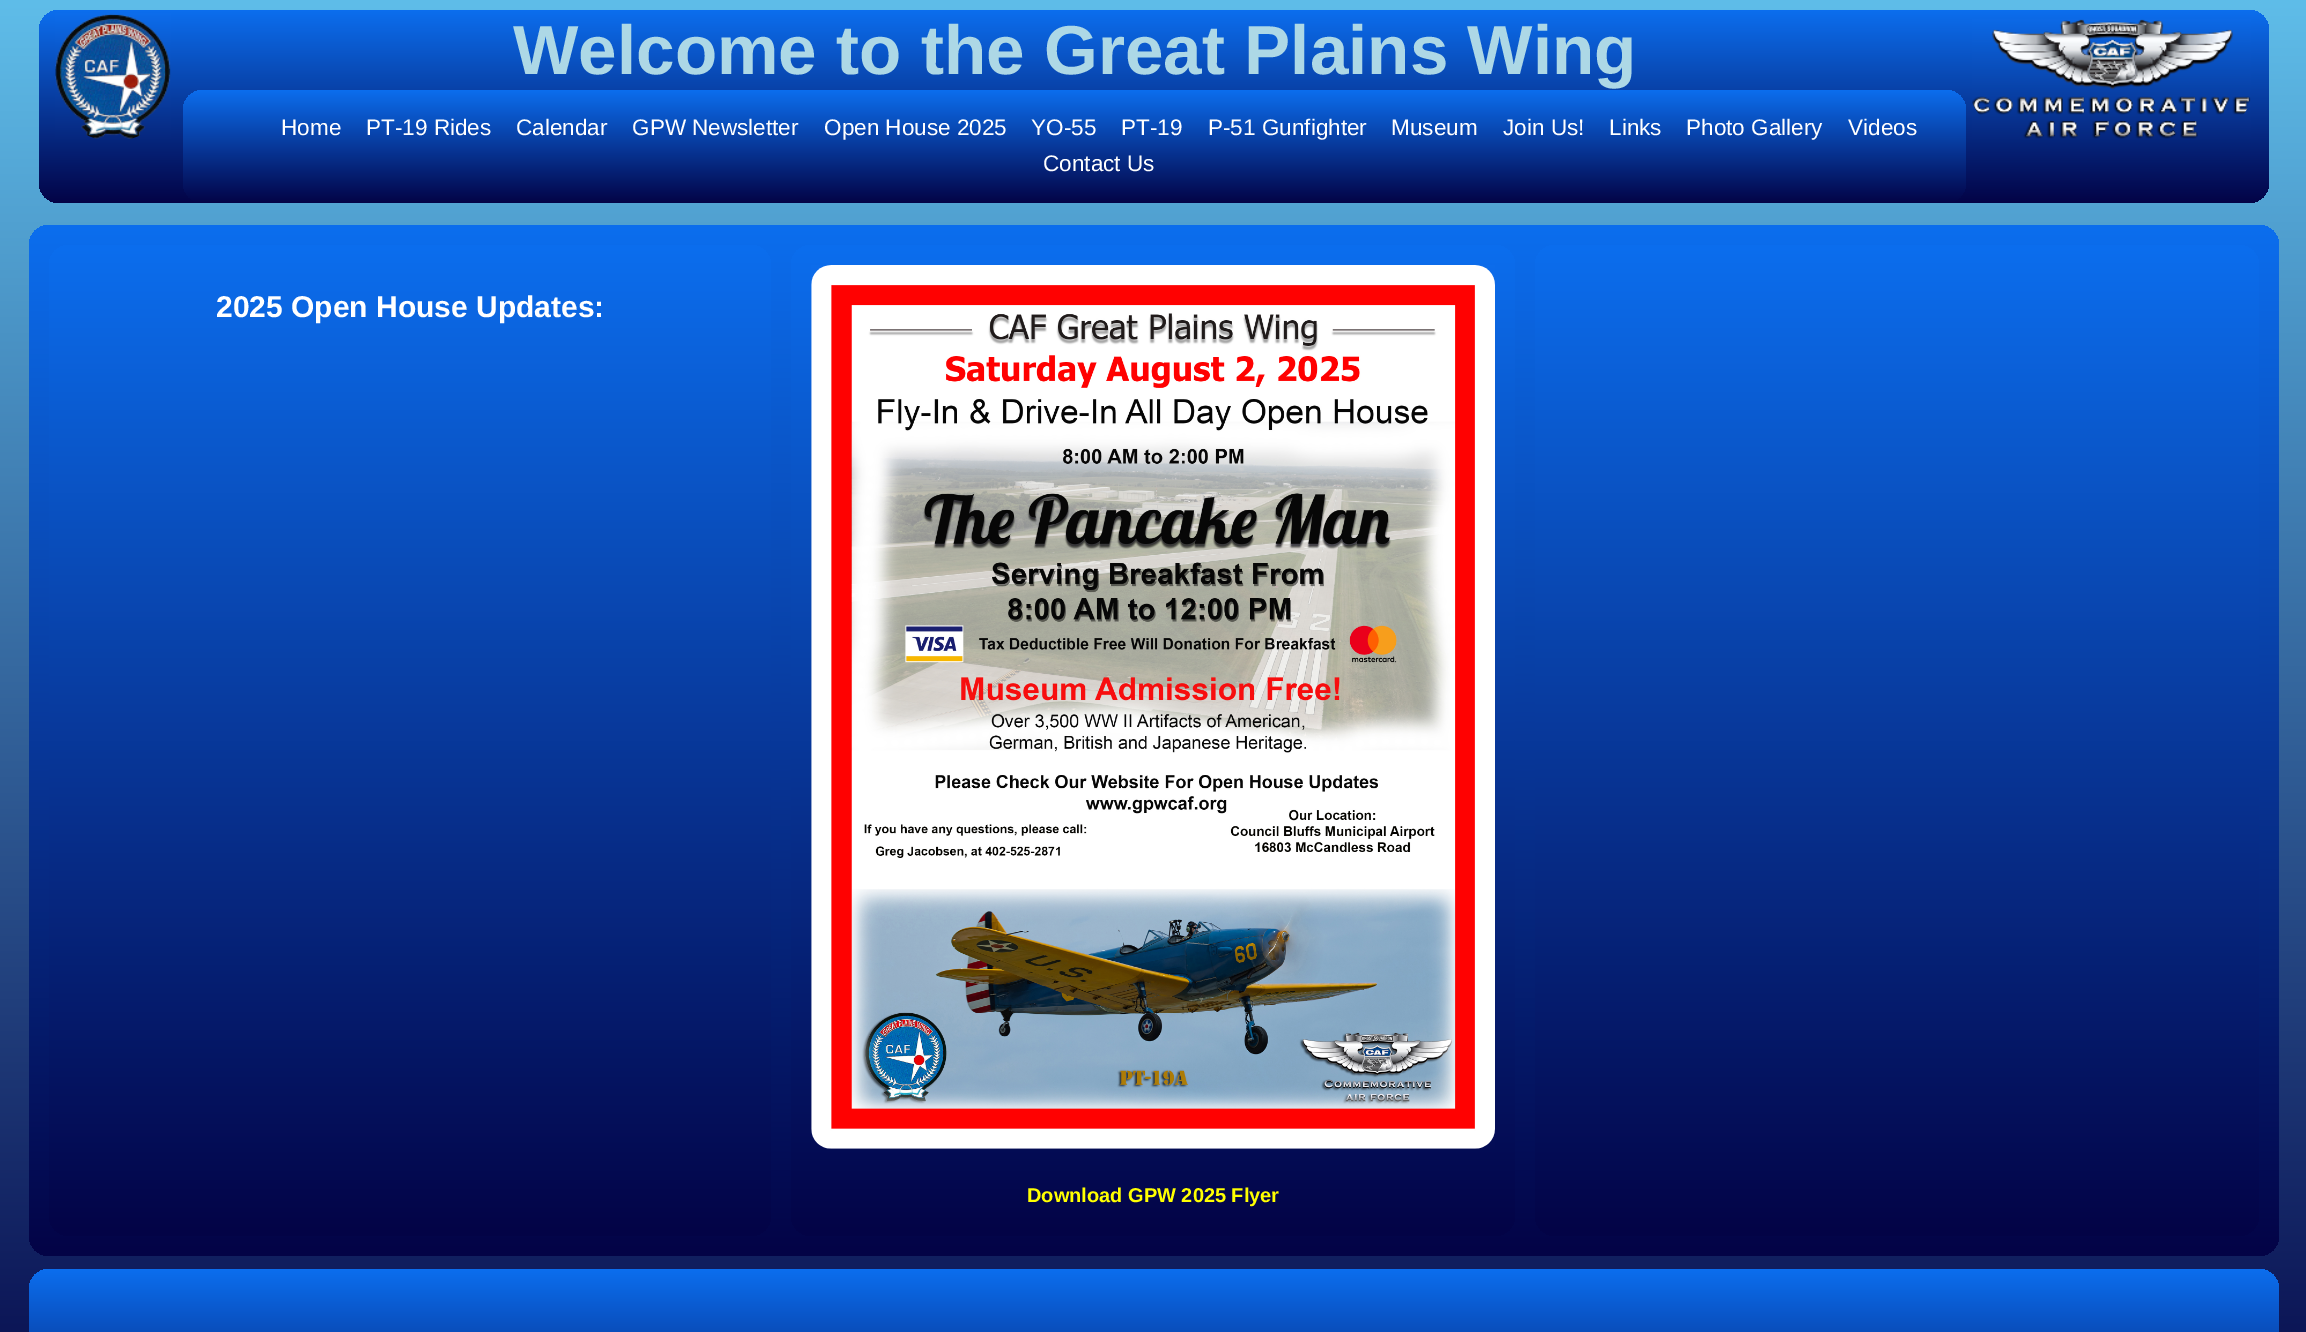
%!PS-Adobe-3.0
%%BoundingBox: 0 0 2306 1332
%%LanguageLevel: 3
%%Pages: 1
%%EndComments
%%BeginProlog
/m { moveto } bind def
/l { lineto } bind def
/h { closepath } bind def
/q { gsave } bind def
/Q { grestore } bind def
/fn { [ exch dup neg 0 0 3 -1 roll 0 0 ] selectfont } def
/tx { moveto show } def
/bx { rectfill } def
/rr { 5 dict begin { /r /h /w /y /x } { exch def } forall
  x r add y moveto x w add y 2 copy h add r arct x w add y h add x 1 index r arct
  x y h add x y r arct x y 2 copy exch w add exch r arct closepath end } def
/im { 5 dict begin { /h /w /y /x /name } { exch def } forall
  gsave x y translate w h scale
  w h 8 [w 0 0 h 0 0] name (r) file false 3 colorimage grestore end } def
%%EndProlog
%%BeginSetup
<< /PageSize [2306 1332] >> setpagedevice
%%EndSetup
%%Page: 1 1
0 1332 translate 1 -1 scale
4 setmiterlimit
1 setgray
0 0 2306 1332 bx
q 0 0 m 2306 0 l 2306 1332 l 0 1332 l h clip newpath
<< /ShadingType 2 /ColorSpace /DeviceRGB /Coords [1153 0 1153 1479] /Extend [true true] /Function << /FunctionType 2 /Domain [0 1] /C0 [0.373 0.741 0.914] /C1 [0.012 0.012 0.278] /N 1 >> >> shfill Q
q 39 10 2230 193 20 rr clip newpath
<< /ShadingType 2 /ColorSpace /DeviceRGB /Coords [1154 10 1154 203] /Extend [true true] /Function << /FunctionType 2 /Domain [0 1] /C0 [0.047 0.431 0.933] /C1 [0.012 0.012 0.275] /N 1 >> >> shfill Q
(image0.raw) 55 13 116 126 im
/LiberationSans-Bold 69.25 fn
0.678 0.847 0.902 setrgbcolor
(Welcome to the Great Plains Wing) 513 74 tx
(image1.raw) 1972 19 279 120 im
q 183 90 1783 113 20 rr clip newpath
<< /ShadingType 2 /ColorSpace /DeviceRGB /Coords [1074 90 1074 203] /Extend [true true] /Function << /FunctionType 2 /Domain [0 1] /C0 [0.047 0.431 0.933] /C1 [0.012 0.012 0.275] /N 1 >> >> shfill Q
/LiberationSans-Regular 22.5 fn
1 setgray
(Home) 281 135 tx
(PT-19 Rides) 366 135 tx
(Calendar) 516 135 tx
(GPW Newsletter) 632 135 tx
(Open House 2025) 824 135 tx
(YO-55) 1031 135 tx
(PT-19) 1121 135 tx
(P-51 Gunfighter) 1208 135 tx
(Museum) 1391 135 tx
(Join Us!) 1503 135 tx
(Links) 1609 135 tx
(Photo Gallery) 1686 135 tx
(Videos) 1848 135 tx
(Contact Us) 1043 171 tx
q 29 225 2250 1031 20 rr clip newpath
<< /ShadingType 2 /ColorSpace /DeviceRGB /Coords [1154 225 1154 1256] /Extend [true true] /Function << /FunctionType 2 /Domain [0 1] /C0 [0.047 0.431 0.933] /C1 [0.012 0.012 0.275] /N 1 >> >> shfill Q
q 49 245 722 991 20 rr clip newpath
<< /ShadingType 2 /ColorSpace /DeviceRGB /Coords [410 245 410 1236] /Extend [true true] /Function << /FunctionType 2 /Domain [0 1] /C0 [0.047 0.431 0.933] /C1 [0.012 0.012 0.275] /N 1 >> >> shfill Q
/LiberationSans-Bold 30 fn
(2025 Open House Updates:) 216 317 tx
q 1535 245 724 991 20 rr clip newpath
<< /ShadingType 2 /ColorSpace /DeviceRGB /Coords [1897 245 1897 1236] /Extend [true true] /Function << /FunctionType 2 /Domain [0 1] /C0 [0.047 0.431 0.933] /C1 [0.012 0.012 0.275] /N 1 >> >> shfill Q
q 791 245 724 991 20 rr clip newpath
<< /ShadingType 2 /ColorSpace /DeviceRGB /Coords [1153 245 1153 1236] /Extend [true true] /Function << /FunctionType 2 /Domain [0 1] /C0 [0.047 0.431 0.933] /C1 [0.012 0.012 0.275] /N 1 >> >> shfill Q
(image2.raw) 811 265 684 884 im
/LiberationSans-Bold 20 fn
1 1 0 setrgbcolor
(Download GPW 2025 Flyer) 1027 1202 tx
q 29 1269 2250 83 20 rr clip newpath
<< /ShadingType 2 /ColorSpace /DeviceRGB /Coords [1154 1269 1154 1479] /Extend [true true] /Function << /FunctionType 2 /Domain [0 1] /C0 [0.047 0.431 0.933] /C1 [0.012 0.012 0.275] /N 1 >> >> shfill Q
showpage
%%EOF
